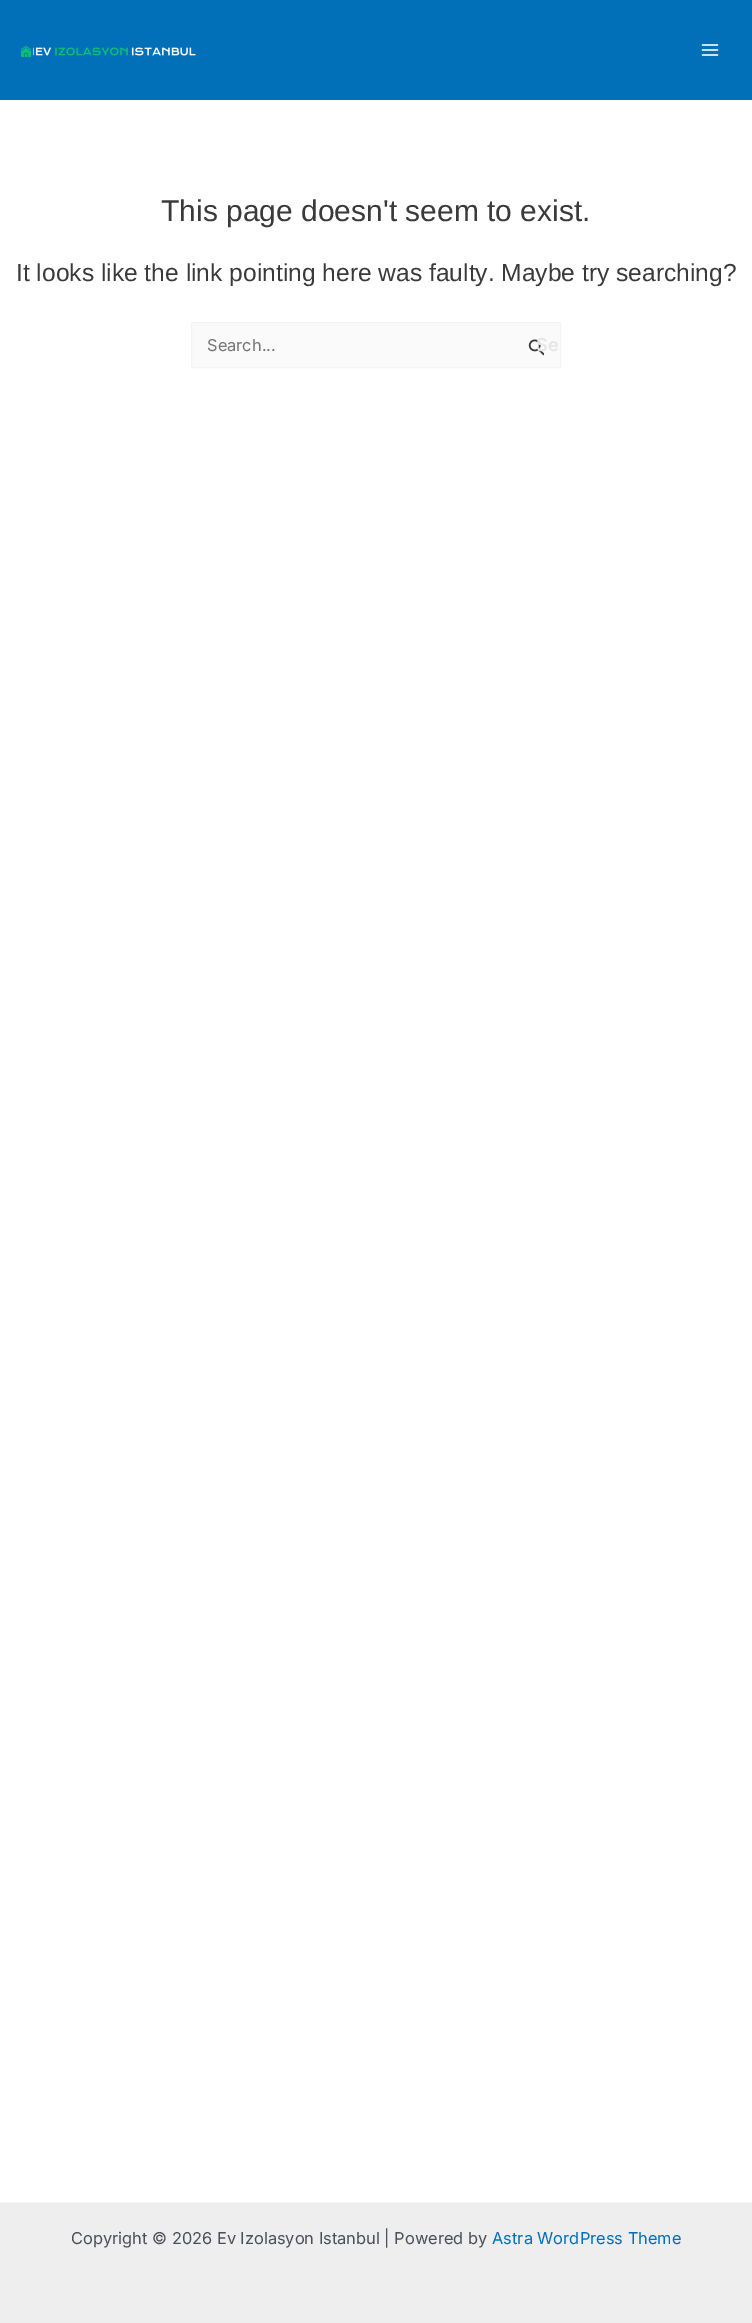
%!PS-Adobe-3.0
%%BoundingBox: 0 0 752 2323
%%LanguageLevel: 3
%%Pages: 1
%%EndComments
%%BeginProlog
/f { fill } bind def
/S { stroke } bind def
/q { gsave } bind def
/Q { grestore } bind def
/fn { [ exch dup neg 0 0 3 -1 roll 0 0 ] selectfont } def
/tx { moveto show } def
/bx { rectfill } def
/rr { 5 dict begin { /r /h /w /y /x } { exch def } forall
  x r add y moveto x w add y 2 copy h add r arct x w add y h add x 1 index r arct
  x y h add x y r arct x y 2 copy exch w add exch r arct closepath end } def
/im { 5 dict begin { /h /w /y /x /name } { exch def } forall
  gsave x y translate w h scale
  w h 8 [w 0 0 h 0 0] name (r) file false 3 colorimage grestore end } def
%%EndProlog
%%BeginSetup
<< /PageSize [752 2323] >> setpagedevice
%%EndSetup
%%Page: 1 1
0 2323 translate 1 -1 scale
4 setmiterlimit
1 setgray
0 0 752 2323 bx
0.004 0.439 0.725 setrgbcolor
0 0 752 100 bx
(image0.raw) 21 46 175 11 im
(image1.raw) 701 44 18 12 im
/LiberationSans-Regular 30 fn
0.227 setgray
(This page doesn't seem to exist.) 161 221 tx
/LiberationSans-Regular 24.6 fn
(It looks like the link pointing here was faulty. Maybe try searching?) 16 281 tx
0.98 setgray
191.5 322.5 369 45 1.5 rr q f Q
0.949 0.961 0.969 setrgbcolor
S
/Inter-Regular 16.4 fn
0.459 setgray
(Search...) 207 351 tx
(image2.raw) 528 339 16 17 im
/Inter-SemiBold 18 fn
0.902 setgray
(Se) 536 351 tx
0.933 setgray
0 2203 752 120 bx
0.949 0.961 0.969 setrgbcolor
0 2202 752 1 bx
/Inter-Regular 16.4 fn
0.294 0.31 0.345 setrgbcolor
(Copyright © 2026 Ev Izolasyon Istanbul | Powered by) 71 2244 tx
0.004 0.439 0.725 setrgbcolor
(Astra WordPress Theme) 492 2244 tx
showpage
%%EOF
